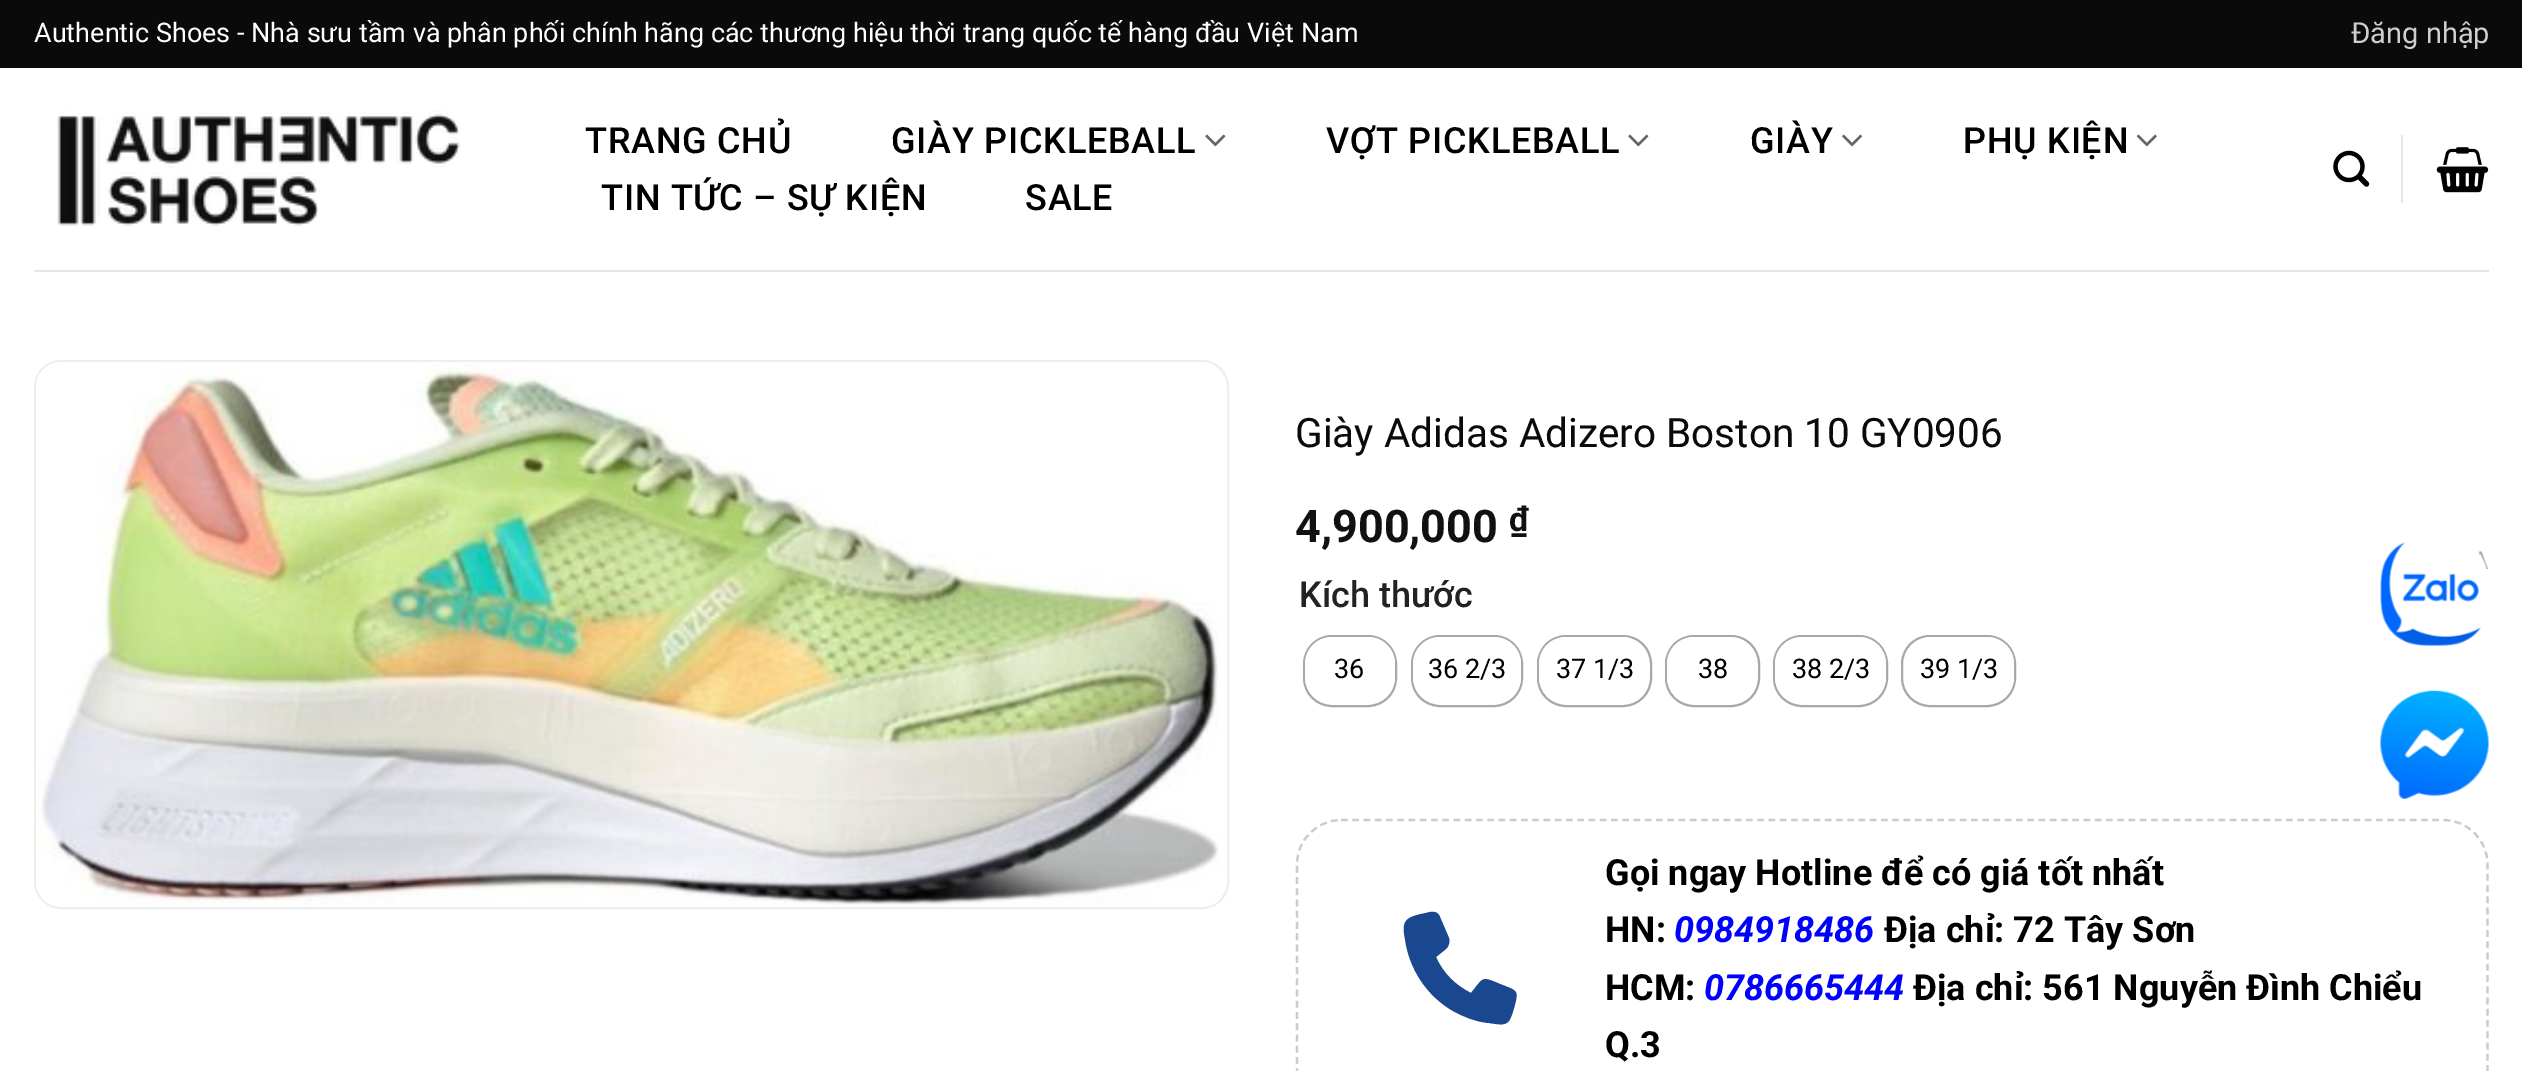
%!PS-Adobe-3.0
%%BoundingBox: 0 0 2522 1071
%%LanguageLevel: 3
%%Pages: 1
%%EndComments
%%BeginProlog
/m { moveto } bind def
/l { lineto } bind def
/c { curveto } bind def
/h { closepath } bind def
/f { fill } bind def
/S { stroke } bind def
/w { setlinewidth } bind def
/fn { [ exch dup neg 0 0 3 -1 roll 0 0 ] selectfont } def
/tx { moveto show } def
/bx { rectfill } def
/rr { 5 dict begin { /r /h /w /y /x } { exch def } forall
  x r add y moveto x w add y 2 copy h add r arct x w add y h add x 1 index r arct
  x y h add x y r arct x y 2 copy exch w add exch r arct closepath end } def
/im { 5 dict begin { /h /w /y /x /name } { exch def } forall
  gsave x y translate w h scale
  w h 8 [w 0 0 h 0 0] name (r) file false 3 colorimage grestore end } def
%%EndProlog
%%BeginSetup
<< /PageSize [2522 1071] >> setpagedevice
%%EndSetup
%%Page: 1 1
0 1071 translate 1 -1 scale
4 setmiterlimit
1 setgray
0 0 2522 1071 bx
0.039 setgray
0 0 2522 68 bx
/Roboto-Regular 27 fn
1 setgray
(Authentic Shoes - Nhà sưu tầm và phân phối chính hãng các thương hiệu thời trang quốc tế hàng đầu Việt Nam) 34 42 tx
/Roboto-Regular 29 fn
0.808 setgray
(Đăng nhập) 2351 43 tx
(image0.raw) 57 111 404 115 im
/Roboto-Medium 36 fn
0 setgray
585 153 m 0.75 0 (TRANG CHỦ) ashow
891 153 m 0.75 0 (GIÀY PICKLEBALL) ashow
(image1.raw) 1205 134 21 13 im
1326 153 m 0.75 0 (VỢT PICKLEBALL) ashow
(image1.raw) 1628 134 21 13 im
1750 153 m 0.75 0 (GIÀY) ashow
(image2.raw) 1842 134 20 13 im
1963 153 m 0.75 0 (PHỤ KIỆN) ashow
(image3.raw) 2136 134 21 13 im
601 210 m 0.75 0 (TIN TỨC – SỰ KIỆN) ashow
1025 210 m 0.75 0 (SALE) ashow
(image4.raw) 2333 150 37 37 im
0.902 setgray
2401 135 2 68 bx
(image5.raw) 2436 147 53 46 im
0.906 setgray
34 270 2455 2 bx
0.933 setgray
2 w
35 361 1193 547 26 rr S
(image6.raw) 36 362 1183 544 im
/Roboto-Regular 40.5 fn
0.039 setgray
(Giày Adidas Adizero Boston 10 GY0906) 1295 447 tx
/Roboto-Bold 45 fn
0.067 setgray
(4,900,000) 1295 542 tx
/Roboto-Bold 34 fn
(₫) 1509 531 tx
/Roboto-Medium 36 fn
0.133 setgray
(Kích thước) 1299 607 tx
0.659 setgray
1304 636 92 70 28 rr S
1 setgray
1305 637 90 67 27 rr f
/Roboto-Regular 27 fn
0 setgray
(36) 1334 678 tx
0.659 setgray
1412 636 110 70 28 rr S
1 setgray
1413 637 108 67 27 rr f
0 setgray
(36 2/3) 1428 678 tx
0.659 setgray
1538 636 113 70 28 rr S
1 setgray
1539 637 110 67 27 rr f
0 setgray
(37 1/3) 1556 678 tx
0.659 setgray
1666 636 93 70 28 rr S
1 setgray
1667 637 90 67 27 rr f
0 setgray
(38) 1698 678 tx
0.659 setgray
1774 636 113 70 28 rr S
1 setgray
1775 637 111 67 27 rr f
0 setgray
(38 2/3) 1792 678 tx
0.659 setgray
1902 636 113 70 28 rr S
1 setgray
1904 637 110 67 27 rr f
0 setgray
(39 1/3) 1920 678 tx
0.8 setgray
2.2 w
[6.75 4.5] 0 setdash
1341 820 m 2443.5 820 l 2467.5 820 2487.5 840 2487.5 864 c 2487.5 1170 l 2487.5 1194 2467.5 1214 2443.5 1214 c 1341 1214 l 1317 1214 1297 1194 1297 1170 c 1297 864 l 1297 840 1317 820 1341 820 c h S
0.098 0.282 0.565 setrgbcolor
1440 917 m 1438 911 1432 911 1426 913 c 1421 914 1410 916 1407 920 c 1402 924 1404 934 1405 939 c 1409 969 1427 996 1453 1011 c 1464 1017 1476 1022 1489 1023 c 1508 1026 1509 1025 1514 1008 c 1519 990 1518 991 1500 984 c 1481 976 1484 977 1471 993 c 1455 985 1443 973 1436 957 c 1446 949 l 1449 946 1450 942 1449 938 c h f
/Roboto-Bold 36 fn
0 setgray
(Gọi ngay Hotline để có giá tốt nhất) 1605 885 tx
(HN:) 1605 942 tx
/Roboto-BoldItalic 36 fn
0 0 1 setrgbcolor
(0984918486) 1674 942 tx
/Roboto-Bold 36 fn
0 setgray
(Địa chỉ: 72 Tây Sơn) 1884 942 tx
(HCM:) 1605 1000 tx
/Roboto-BoldItalic 36 fn
0 0 1 setrgbcolor
(0786665444) 1704 1000 tx
/Roboto-Bold 36 fn
0 setgray
(Địa chỉ: 561 Nguyễn Đình Chiểu) 1913 1000 tx
(Q.3) 1605 1057 tx
(image7.raw) 2380 542 108 104 im
(image8.raw) 2380 690 109 109 im
showpage
%%EOF
